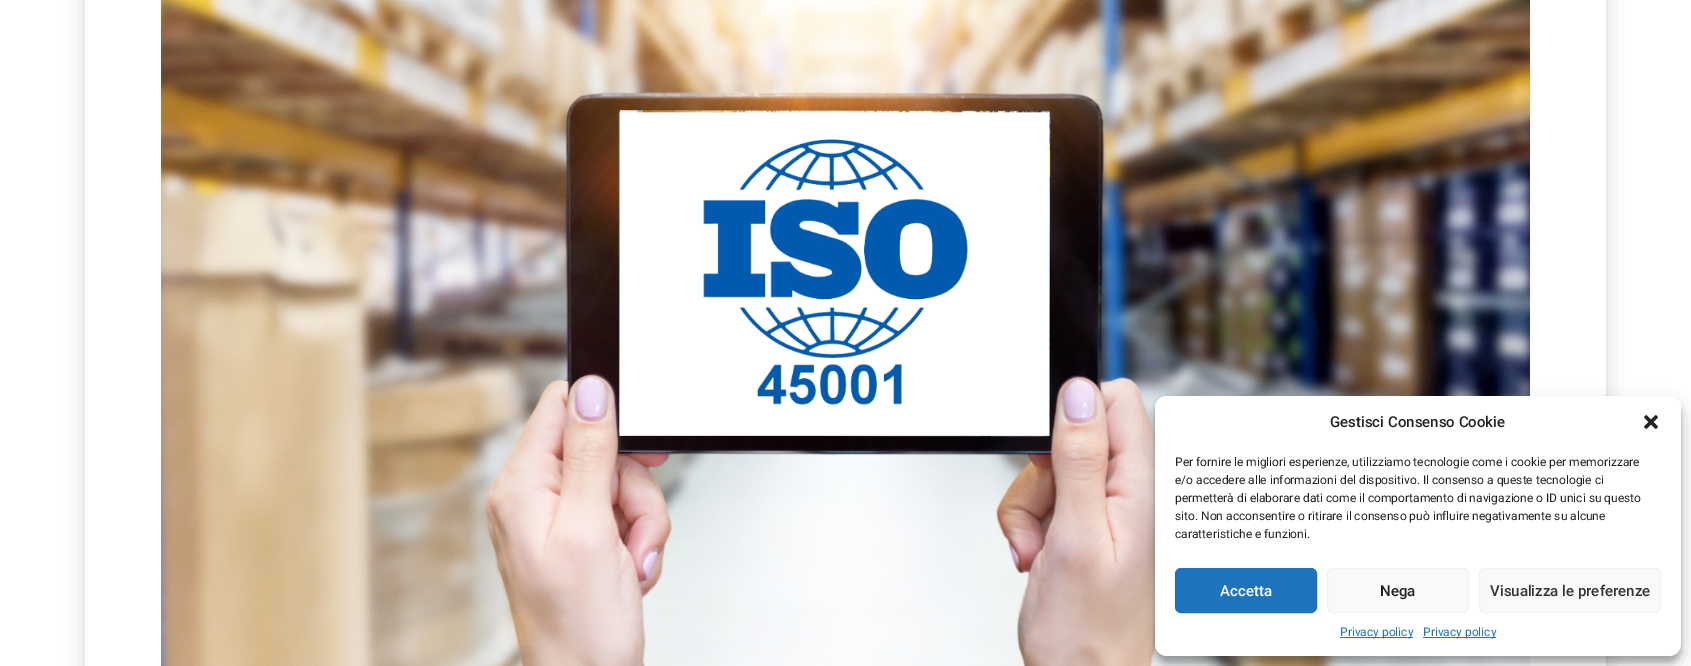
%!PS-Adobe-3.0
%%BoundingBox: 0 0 1691 666
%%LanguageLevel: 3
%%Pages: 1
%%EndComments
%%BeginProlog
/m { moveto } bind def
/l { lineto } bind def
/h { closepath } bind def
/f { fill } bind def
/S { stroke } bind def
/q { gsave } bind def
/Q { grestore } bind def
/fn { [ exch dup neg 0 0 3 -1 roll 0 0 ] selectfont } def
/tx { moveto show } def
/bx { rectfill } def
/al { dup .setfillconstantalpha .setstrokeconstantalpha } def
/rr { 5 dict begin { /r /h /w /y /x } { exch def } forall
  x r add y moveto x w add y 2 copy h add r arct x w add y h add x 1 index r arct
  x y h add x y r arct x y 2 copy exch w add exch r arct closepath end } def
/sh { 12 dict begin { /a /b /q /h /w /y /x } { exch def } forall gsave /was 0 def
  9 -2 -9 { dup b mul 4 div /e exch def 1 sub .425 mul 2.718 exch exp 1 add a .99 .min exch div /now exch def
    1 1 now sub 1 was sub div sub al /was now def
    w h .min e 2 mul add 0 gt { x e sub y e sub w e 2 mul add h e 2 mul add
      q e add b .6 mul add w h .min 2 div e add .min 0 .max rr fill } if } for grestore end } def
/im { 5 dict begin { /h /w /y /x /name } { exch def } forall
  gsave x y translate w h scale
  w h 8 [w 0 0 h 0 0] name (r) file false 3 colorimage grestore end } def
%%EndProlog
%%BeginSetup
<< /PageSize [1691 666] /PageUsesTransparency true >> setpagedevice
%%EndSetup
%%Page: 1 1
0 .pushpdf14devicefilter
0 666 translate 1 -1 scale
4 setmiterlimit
1 setgray
0 0 1691 666 bx
q
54 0 m 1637 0 l 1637 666 l 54 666 l h 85 -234 m 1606 -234 l 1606 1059 l 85 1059 l h eoclip newpath
0 setgray
85 -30 1521 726 0 10 0.17 sh
Q
(image0.raw) 161 0 1369 666 im
0 setgray
1155 402 526 260 12 3 0.23 sh
1155 406 526 260 12 10 0.19 sh
1 setgray
1155 396 526 260 12 rr f
/Roboto-Medium 15 fn
0.133 setgray
(Gestisci Consenso Cookie) 1330 427 tx
(image1.raw) 1644 415 14 14 im
/Roboto-Regular 12 fn
(Per fornire le migliori esperienze, utilizziamo tecnologie come i cookie per memorizzare) 1175 466 tx
(e/o accedere alle informazioni del dispositivo. Il consenso a queste tecnologie ci) 1175 484 tx
(permetterà di elaborare dati come il comportamento di navigazione o ID unici su questo) 1175 502 tx
(sito. Non acconsentire o ritirare il consenso può influire negativamente su alcune) 1175 520 tx
(caratteristiche e funzioni.) 1175 538 tx
0.118 0.451 0.745 setrgbcolor
1175.5 568.5 141 44 5.5 rr q f Q
S
/Roboto-Medium 15 fn
1 setgray
(Accetta) 1220 596 tx
0.976 setgray
1327.5 568.5 141 44 5.5 rr q f Q
0.949 setgray
S
0.133 setgray
(Nega) 1380 596 tx
0.976 setgray
1479.5 568.5 181 44 5.5 rr q f Q
0.949 setgray
S
0.2 setgray
(Visualizza le preferenze) 1490 596 tx
0.118 0.451 0.745 setrgbcolor
1340 637 73 1 bx
/Roboto-Regular 12 fn
(Privacy policy) 1340 636 tx
1423 637 73 1 bx
(Privacy policy) 1423 636 tx
.poppdf14devicefilter showpage
%%EOF
